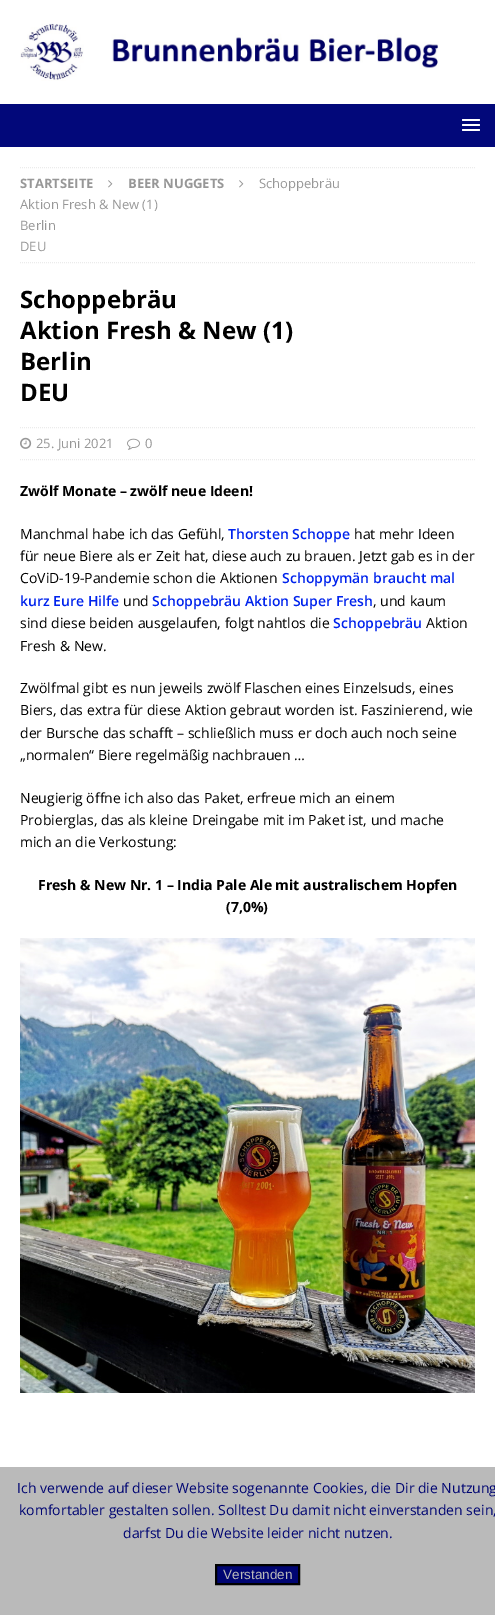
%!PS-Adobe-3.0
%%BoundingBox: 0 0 495 1615
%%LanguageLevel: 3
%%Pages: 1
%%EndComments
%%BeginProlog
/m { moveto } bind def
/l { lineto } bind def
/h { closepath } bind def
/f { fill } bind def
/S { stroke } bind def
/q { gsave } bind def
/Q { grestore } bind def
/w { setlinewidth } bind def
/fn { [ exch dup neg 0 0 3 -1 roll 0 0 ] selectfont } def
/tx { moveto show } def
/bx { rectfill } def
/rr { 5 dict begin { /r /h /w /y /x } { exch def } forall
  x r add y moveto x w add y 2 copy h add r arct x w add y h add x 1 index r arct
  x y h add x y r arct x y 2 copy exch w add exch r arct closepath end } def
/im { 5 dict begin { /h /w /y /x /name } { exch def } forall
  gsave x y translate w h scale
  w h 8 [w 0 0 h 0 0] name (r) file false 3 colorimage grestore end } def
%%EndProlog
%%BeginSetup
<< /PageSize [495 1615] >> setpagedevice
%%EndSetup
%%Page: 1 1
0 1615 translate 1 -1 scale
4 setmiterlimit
1 setgray
0 0 495 1615 bx
(image0.raw) 20 20 419 61 im
0.008 0.031 0.478 setrgbcolor
0 104 495 43 bx
1 setgray
462 119 18 2 1 rr f
462 124 18 2 1 rr f
462 129 18 2 1 rr f
0.922 setgray
[1 1] 0 setdash
20 167.5 m 475 167.5 l S
20 262.5 m 475 262.5 l S
/OpenSans-Bold 13 fn
0.592 setgray
(STARTSEITE) 20 188 tx
(image1.raw) 108 180 5 8 im
(BEER NUGGETS) 128 188 tx
(image1.raw) 239 180 5 8 im
/OpenSans-Regular 13 fn
(Schoppebräu) 259 188 tx
(Aktion Fresh & New \(1\)) 20 209 tx
(Berlin) 20 230 tx
(DEU) 20 251 tx
/OpenSans-Bold 24 fn
0 setgray
(Schoppebräu) 20 308 tx
(Aktion Fresh & New \(1\)) 20 339 tx
(Berlin) 20 370 tx
(DEU) 20 401 tx
0.922 setgray
20 427.5 m 475 427.5 l S
20 459.5 m 475 459.5 l S
(image2.raw) 20 437 12 12 im
/OpenSans-Regular 13 fn
0.592 setgray
(25. Juni 2021) 36 448 tx
(image3.raw) 127 438 13 12 im
(0) 145 448 tx
/OpenSans-Bold 14 fn
0 setgray
(Zwölf Monate – zwölf neue Ideen!) 20 496 tx
/OpenSans-Regular 14 fn
(Manchmal habe ich das Gefühl,) 20 539 tx
/OpenSans-SemiBold 14 fn
0 0.137 0.929 setrgbcolor
(Thorsten Schoppe) 228 539 tx
/OpenSans-Regular 14 fn
0 setgray
(hat mehr Ideen) 354 539 tx
(für neue Biere als er Zeit hat, diese auch zu brauen. Jetzt gab es in der) 20 561 tx
(CoViD-19-Pandemie schon die Aktionen) 20 583 tx
/OpenSans-SemiBold 14 fn
0 0.137 0.929 setrgbcolor
(Schoppymän braucht mal) 282 583 tx
(kurz Eure Hilfe) 20 606 tx
/OpenSans-Regular 14 fn
0 setgray
(und) 123 606 tx
/OpenSans-SemiBold 14 fn
0 0.137 0.929 setrgbcolor
(Schoppebräu Aktion Super Fresh) 152 606 tx
/OpenSans-Regular 14 fn
0 setgray
(, und kaum) 373 606 tx
(sind diese beiden ausgelaufen, folgt nahtlos die) 20 628 tx
/OpenSans-SemiBold 14 fn
0 0.137 0.929 setrgbcolor
(Schoppebräu) 333 628 tx
/OpenSans-Regular 14 fn
0 setgray
(Aktion) 426 628 tx
(Fresh & New.) 20 651 tx
(Zwölfmal gibt es nun jeweils zwölf Flaschen eines Einzelsuds, eines) 20 693 tx
(Biers, das extra für diese Aktion gebraut worden ist. Faszinierend, wie) 20 715 tx
(der Bursche das schafft – schließlich muss er doch auch noch seine) 20 738 tx
(„normalen“ Biere regelmäßig nachbrauen …) 20 760 tx
(Neugierig öffne ich also das Paket, erfreue mich an einem) 20 803 tx
(Probierglas, das als kleine Dreingabe mit im Paket ist, und mache) 20 825 tx
(mich an die Verkostung:) 20 847 tx
/OpenSans-Bold 14 fn
(Fresh & New Nr. 1 – India Pale Ale mit australischem Hopfen) 38 890 tx
(\(7,0%\)) 226 912 tx
(image4.raw) 20 938 455 455 im
0.729 setgray
0 1467 495 148 bx
/OpenSans-Regular 14 fn
0 0.02 0.447 setrgbcolor
(Ich verwende auf dieser Website sogenannte Cookies, die Dir die Nutzung) 17 1493 tx
(komfortabler gestalten sollen. Solltest Du damit nicht einverstanden sein,) 19 1515 tx
(darfst Du die Website leider nicht nutzen.) 123 1538 tx
216 1565 m 299 1565 l 299 1584 l 216 1584 l h q f Q
0 setgray
2 w
[] 0 setdash
S
/LiberationSans-Regular 13.5 fn
0.729 setgray
(Verstanden) 223 1579 tx
showpage
%%EOF
